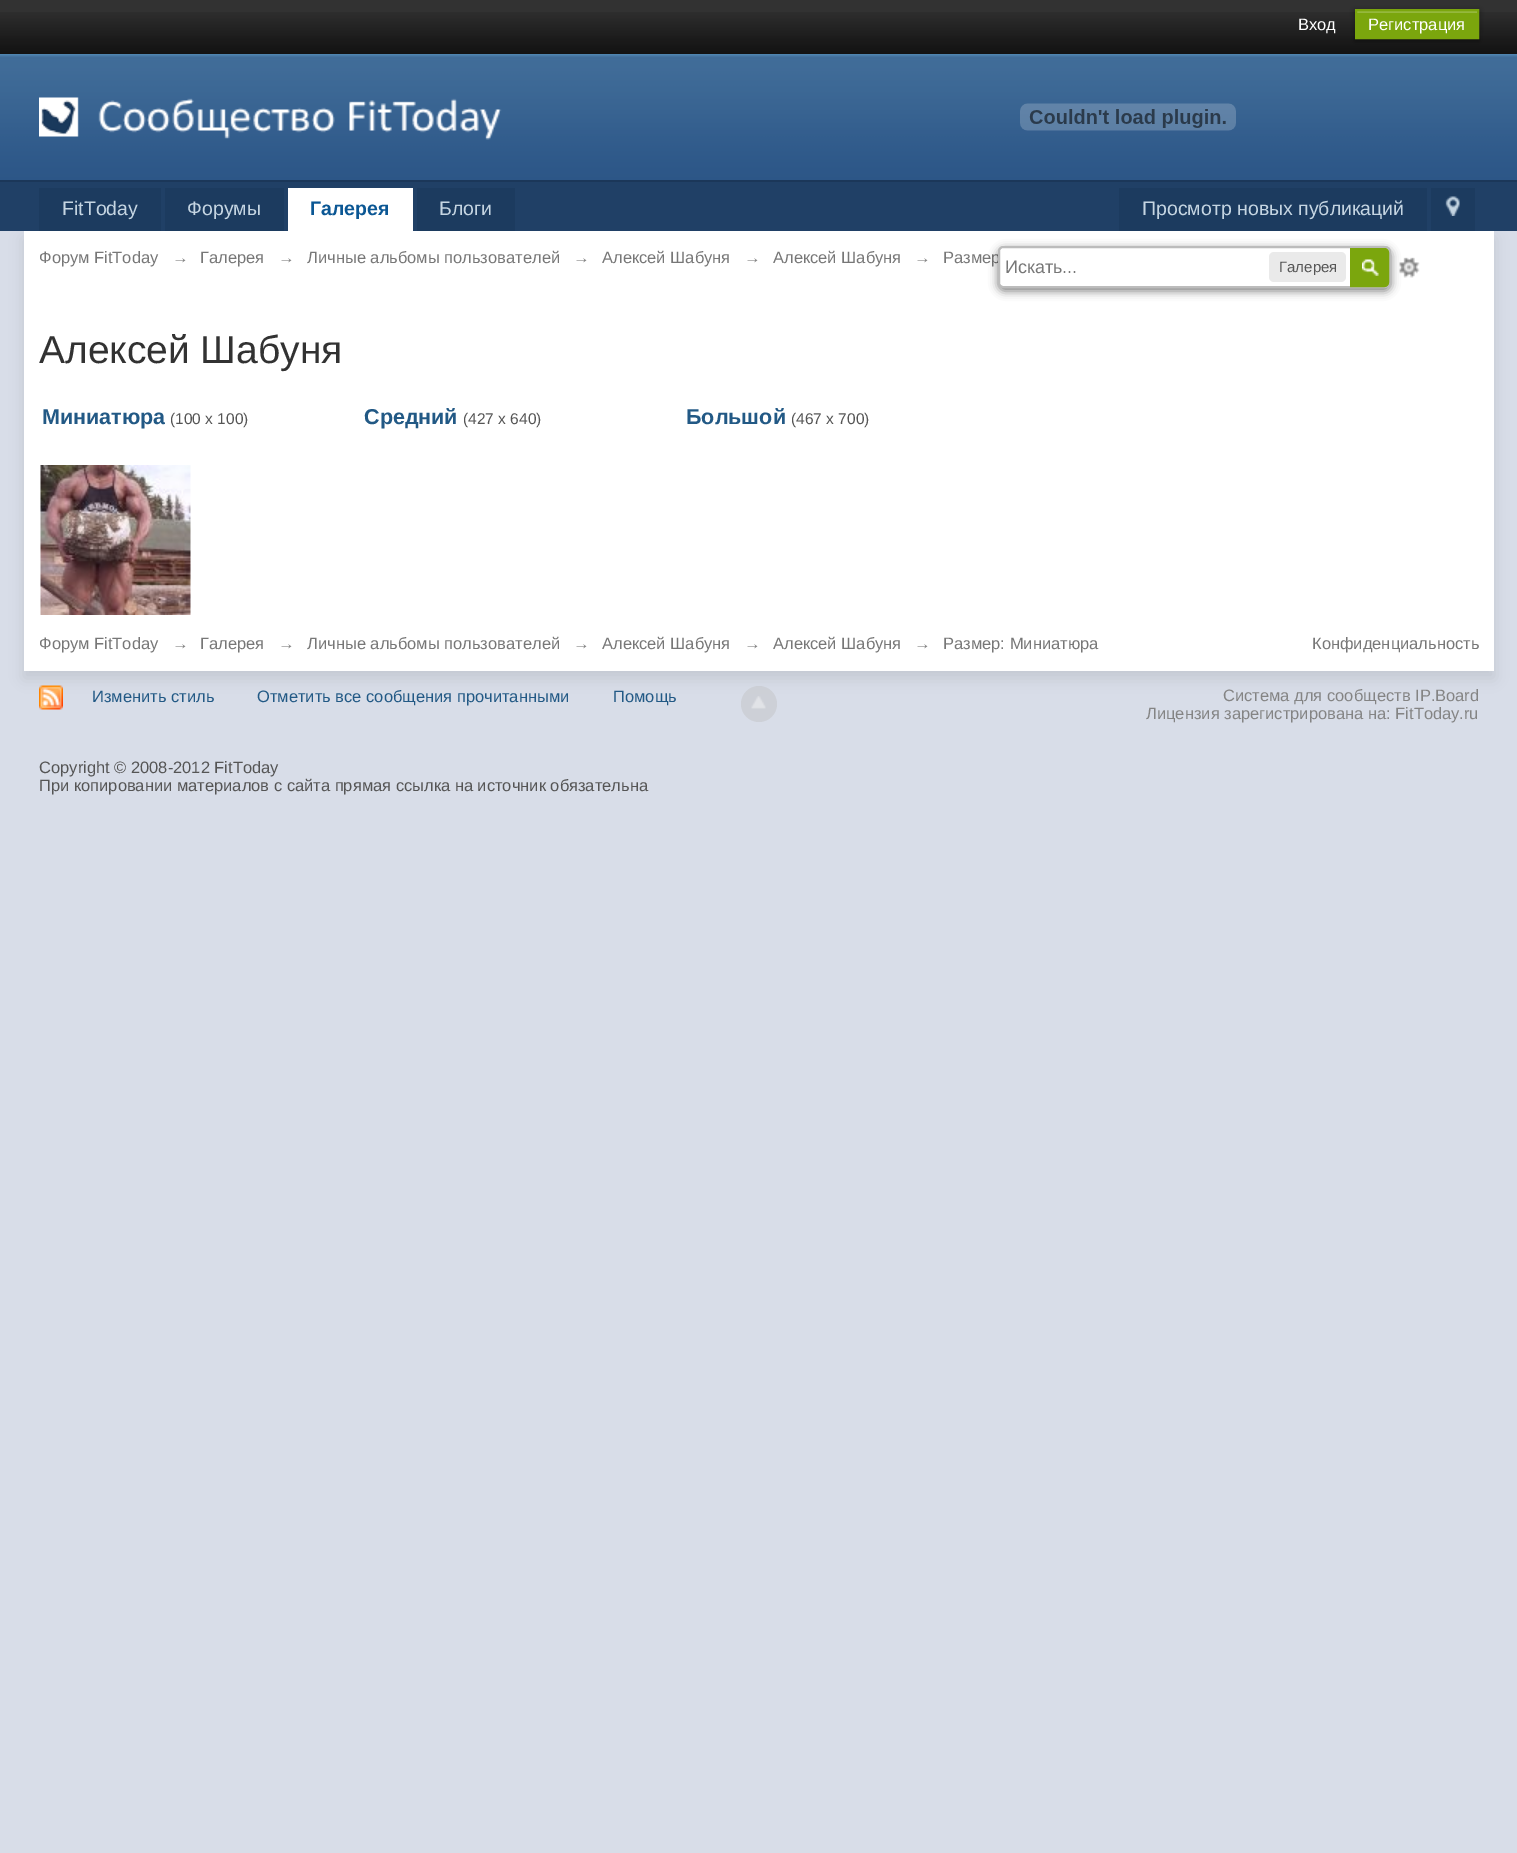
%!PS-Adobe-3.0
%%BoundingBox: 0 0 1517 1853
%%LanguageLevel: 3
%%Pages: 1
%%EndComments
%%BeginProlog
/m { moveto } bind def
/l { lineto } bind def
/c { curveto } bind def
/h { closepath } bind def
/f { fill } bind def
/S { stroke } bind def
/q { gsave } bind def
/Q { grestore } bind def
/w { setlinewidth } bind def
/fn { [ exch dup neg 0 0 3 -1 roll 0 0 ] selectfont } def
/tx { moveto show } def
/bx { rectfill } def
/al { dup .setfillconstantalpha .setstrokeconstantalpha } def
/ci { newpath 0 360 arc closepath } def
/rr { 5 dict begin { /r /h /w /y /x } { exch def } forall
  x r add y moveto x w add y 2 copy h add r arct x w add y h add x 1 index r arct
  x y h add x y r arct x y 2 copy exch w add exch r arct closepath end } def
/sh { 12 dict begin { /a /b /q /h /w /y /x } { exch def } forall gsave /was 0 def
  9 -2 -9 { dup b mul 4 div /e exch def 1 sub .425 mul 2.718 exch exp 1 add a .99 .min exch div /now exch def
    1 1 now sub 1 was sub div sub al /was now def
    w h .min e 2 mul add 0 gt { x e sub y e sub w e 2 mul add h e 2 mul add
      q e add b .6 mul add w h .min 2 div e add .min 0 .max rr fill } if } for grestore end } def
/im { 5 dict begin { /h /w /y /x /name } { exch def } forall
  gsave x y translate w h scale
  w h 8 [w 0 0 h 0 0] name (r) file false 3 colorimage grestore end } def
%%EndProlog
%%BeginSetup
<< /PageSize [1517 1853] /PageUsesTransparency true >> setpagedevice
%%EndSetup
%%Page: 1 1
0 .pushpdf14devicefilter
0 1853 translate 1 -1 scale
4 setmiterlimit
0.847 0.867 0.91 setrgbcolor
0 0 1517 1853 bx
0.196 setgray
0 0 1517 12 bx
(image0.raw) 0 12 1517 42 im
/LiberationSans-Regular 16.5 fn
1 setgray
(Вход) 1298 30 tx
0 setgray
1355 11 124 30 0 3 0.4 sh
0.482 0.651 0.051 setrgbcolor
1357 13 120 24 bx
0.584 0.722 0.239 setrgbcolor
1356 11 122 2 bx
0.482 0.651 0.051 setrgbcolor
2 w
1356 10 122 28 rectstroke
1 setgray
(Регистрация) 1368 30 tx
(image1.raw) 0 54 1517 126 im
0.106 0.216 0.349 setrgbcolor
0 180 1517 2 bx
(image2.raw) 39 97 463 43 im
(image3.raw) 1020 103 216 28 im
0.125 0.251 0.4 setrgbcolor
0 182 1517 49 bx
0 setgray
24 239 1470 439 0 7 0.1 sh
0.11 0.231 0.373 setrgbcolor
39 188 122 43 bx
/LiberationSans-Regular 19.5 fn
0.773 0.835 0.886 setrgbcolor
(FitToday) 62 215 tx
0.11 0.231 0.373 setrgbcolor
165 188 119 43 bx
0.773 0.835 0.886 setrgbcolor
(Форумы) 187 215 tx
1 setgray
288 188 125 43 bx
/LiberationSans-Bold 19.5 fn
0.043 0.341 0.58 setrgbcolor
(Галерея) 310 215 tx
0.11 0.231 0.373 setrgbcolor
417 188 98 43 bx
/LiberationSans-Regular 19.5 fn
0.773 0.835 0.886 setrgbcolor
(Блоги) 439 215 tx
0.11 0.231 0.373 setrgbcolor
1119 188 308 43 bx
0.773 0.835 0.886 setrgbcolor
(Просмотр новых публикаций) 1142 215 tx
0.11 0.231 0.373 setrgbcolor
1431 188 44 43 bx
(image4.raw) 1445 196 15 20 im
1 setgray
24 231 1470 440 bx
/LiberationSans-Regular 16.5 fn
0.467 setgray
(Форум FitToday) 39 263 tx
(→) 172 263 tx
(Галерея) 200 263 tx
(→) 278 263 tx
(Личные альбомы пользователей) 307 263 tx
(→) 573 263 tx
(Алексей Шабуня) 602 263 tx
(→) 744 263 tx
(Алексей Шабуня) 773 263 tx
(→) 914 263 tx
(Размер) 943 263 tx
(image6.raw) 1399 257 21 21 im
0 setgray
998 249 393 42 6 4.5 0.5 sh
1 setgray
1003 247 m 1385 247 l 1388 247 1390 249 1390 252 c 1390 282 l 1390 285 1388 287 1385 287 c 1003 287 l 1001 287 999 285 999 283 c 999 251 l 999 249 1001 247 1003 247 c h q f Q
0.737 setgray
S
/LiberationSans-Regular 18 fn
0.467 setgray
(Искать...) 1005 273 tx
0.918 setgray
1269 252 77 30 5 rr f
/LiberationSans-Regular 15 fn
0.333 setgray
(Галерея) 1279 272 tx
0.482 0.651 0.051 setrgbcolor
1350 248 m 1384 248 l 1387 248 1389 250 1389 253 c 1389 282 l 1389 285 1387 287 1384 287 c 1350 287 l h f
(image5.raw) 1362 259 17 17 im
1351 249 m 1384 249 l 1386 249 1388 251 1388 253 c 1388 282 l 1388 284 1386 286 1384 286 c 1351 286 l h S
/LiberationSans-Regular 39 fn
0.196 setgray
(Алексей Шабуня) 39 363 tx
/LiberationSans-Bold 21.5 fn
0.133 0.349 0.522 setrgbcolor
(Миниатюра) 42 424 tx
/LiberationSans-Regular 15.5 fn
0.333 setgray
(\(100 x 100\)) 170 424 tx
/LiberationSans-Bold 21.5 fn
0.133 0.349 0.522 setrgbcolor
(Средний) 364 424 tx
/LiberationSans-Regular 15.5 fn
0.333 setgray
(\(427 x 640\)) 463 424 tx
/LiberationSans-Bold 21.5 fn
0.133 0.349 0.522 setrgbcolor
(Большой) 686 424 tx
/LiberationSans-Regular 15.5 fn
0.333 setgray
(\(467 x 700\)) 791 424 tx
(image7.raw) 40 465 151 150 im
/LiberationSans-Regular 16.5 fn
0.467 setgray
(Форум FitToday) 39 649 tx
(→) 172 649 tx
(Галерея) 200 649 tx
(→) 278 649 tx
(Личные альбомы пользователей) 307 649 tx
(→) 573 649 tx
(Алексей Шабуня) 602 649 tx
(→) 744 649 tx
(Алексей Шабуня) 773 649 tx
(→) 914 649 tx
(Размер: Миниатюра) 943 649 tx
(Конфиденциальность) 1312 649 tx
(image8.raw) 39 685 24 25 im
0.133 0.349 0.522 setrgbcolor
(Изменить стиль) 92 702 tx
(Отметить все сообщения прочитанными) 257 702 tx
(Помощь) 613 702 tx
0.4 al
0.741 setgray
759 704 18 ci f
1 al
(image9.raw) 751 696 15 13 im
0.518 setgray
(Система для сообществ IP.Board) 1223 701 tx
(Лицензия зарегистрирована на: FitToday.ru) 1146 719 tx
0.333 setgray
(Copyright © 2008-2012 FitToday) 39 773 tx
(При копировании материалов с сайта прямая ссылка на источник обязательна) 39 791 tx
.poppdf14devicefilter showpage
%%EOF
